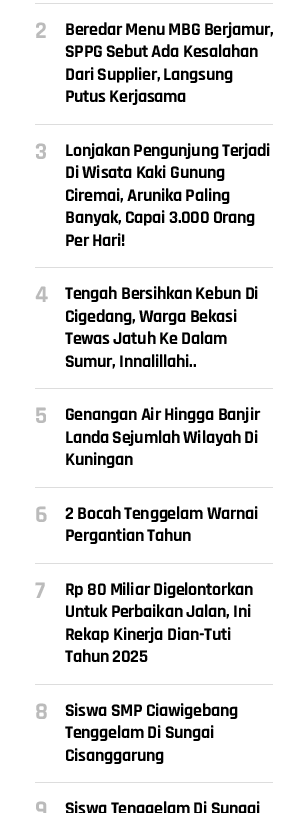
%!PS-Adobe-3.0
%%BoundingBox: 0 0 308 813
%%LanguageLevel: 3
%%Pages: 1
%%EndComments
%%BeginProlog
/m { moveto } bind def
/fn { [ exch dup neg 0 0 3 -1 roll 0 0 ] selectfont } def
/tx { moveto show } def
/bx { rectfill } def
%%EndProlog
%%BeginSetup
<< /PageSize [308 813] >> setpagedevice
%%EndSetup
%%Page: 1 1
0 813 translate 1 -1 scale
4 setmiterlimit
1 setgray
0 0 308 813 bx
0.867 setgray
35 3 238 1 bx
35 124 238 1 bx
/Rajdhani-Bold 24 fn
0.733 setgray
(2) 35 38 tx
/Rajdhani-Bold 18 fn
0 setgray
65 35 m -0.35 0 (Beredar Menu MBG Berjamur,) ashow
65 57 m -0.35 0 (SPPG Sebut Ada Kesalahan) ashow
65 80 m -0.35 0 (Dari Supplier, Langsung) ashow
65 102 m -0.35 0 (Putus Kerjasama) ashow
0.867 setgray
35 267 238 1 bx
/Rajdhani-Bold 24 fn
0.733 setgray
(3) 35 159 tx
/Rajdhani-Bold 18 fn
0 setgray
65 156 m -0.35 0 (Lonjakan Pengunjung Terjadi) ashow
65 178 m -0.35 0 (Di Wisata Kaki Gunung) ashow
65 201 m -0.35 0 (Ciremai, Arunika Paling) ashow
65 223 m -0.35 0 (Banyak, Capai 3.000 Orang) ashow
65 246 m -0.35 0 (Per Hari!) ashow
0.867 setgray
35 388 238 1 bx
/Rajdhani-Bold 24 fn
0.733 setgray
(4) 35 302 tx
/Rajdhani-Bold 18 fn
0 setgray
65 299 m -0.35 0 (Tengah Bersihkan Kebun Di) ashow
65 322 m -0.35 0 (Cigedang, Warga Bekasi) ashow
65 344 m -0.35 0 (Tewas Jatuh Ke Dalam) ashow
65 367 m -0.35 0 (Sumur, Innalillahi..) ashow
0.867 setgray
35 487 238 1 bx
/Rajdhani-Bold 24 fn
0.733 setgray
(5) 35 423 tx
/Rajdhani-Bold 18 fn
0 setgray
65 420 m -0.35 0 (Genangan Air Hingga Banjir) ashow
65 443 m -0.35 0 (Landa Sejumlah Wilayah Di) ashow
65 465 m -0.35 0 (Kuningan) ashow
0.867 setgray
35 563 238 1 bx
/Rajdhani-Bold 24 fn
0.733 setgray
(6) 35 522 tx
/Rajdhani-Bold 18 fn
0 setgray
65 519 m -0.35 0 (2 Bocah Tenggelam Warnai) ashow
65 541 m -0.35 0 (Pergantian Tahun) ashow
0.867 setgray
35 684 238 1 bx
/Rajdhani-Bold 24 fn
0.733 setgray
(7) 35 598 tx
/Rajdhani-Bold 18 fn
0 setgray
65 595 m -0.35 0 (Rp 80 Miliar Digelontorkan) ashow
65 617 m -0.35 0 (Untuk Perbaikan Jalan, Ini) ashow
65 640 m -0.35 0 (Rekap Kinerja Dian-Tuti) ashow
65 662 m -0.35 0 (Tahun 2025) ashow
0.867 setgray
35 782 238 1 bx
/Rajdhani-Bold 24 fn
0.733 setgray
(8) 35 719 tx
/Rajdhani-Bold 18 fn
0 setgray
65 716 m -0.35 0 (Siswa SMP Ciawigebang) ashow
65 738 m -0.35 0 (Tenggelam Di Sungai) ashow
65 761 m -0.35 0 (Cisanggarung) ashow
/Rajdhani-Bold 24 fn
0.733 setgray
(9) 35 817 tx
/Rajdhani-Bold 18 fn
0 setgray
65 814 m -0.35 0 (Siswa Tenggelam Di Sungai) ashow
showpage
%%EOF
